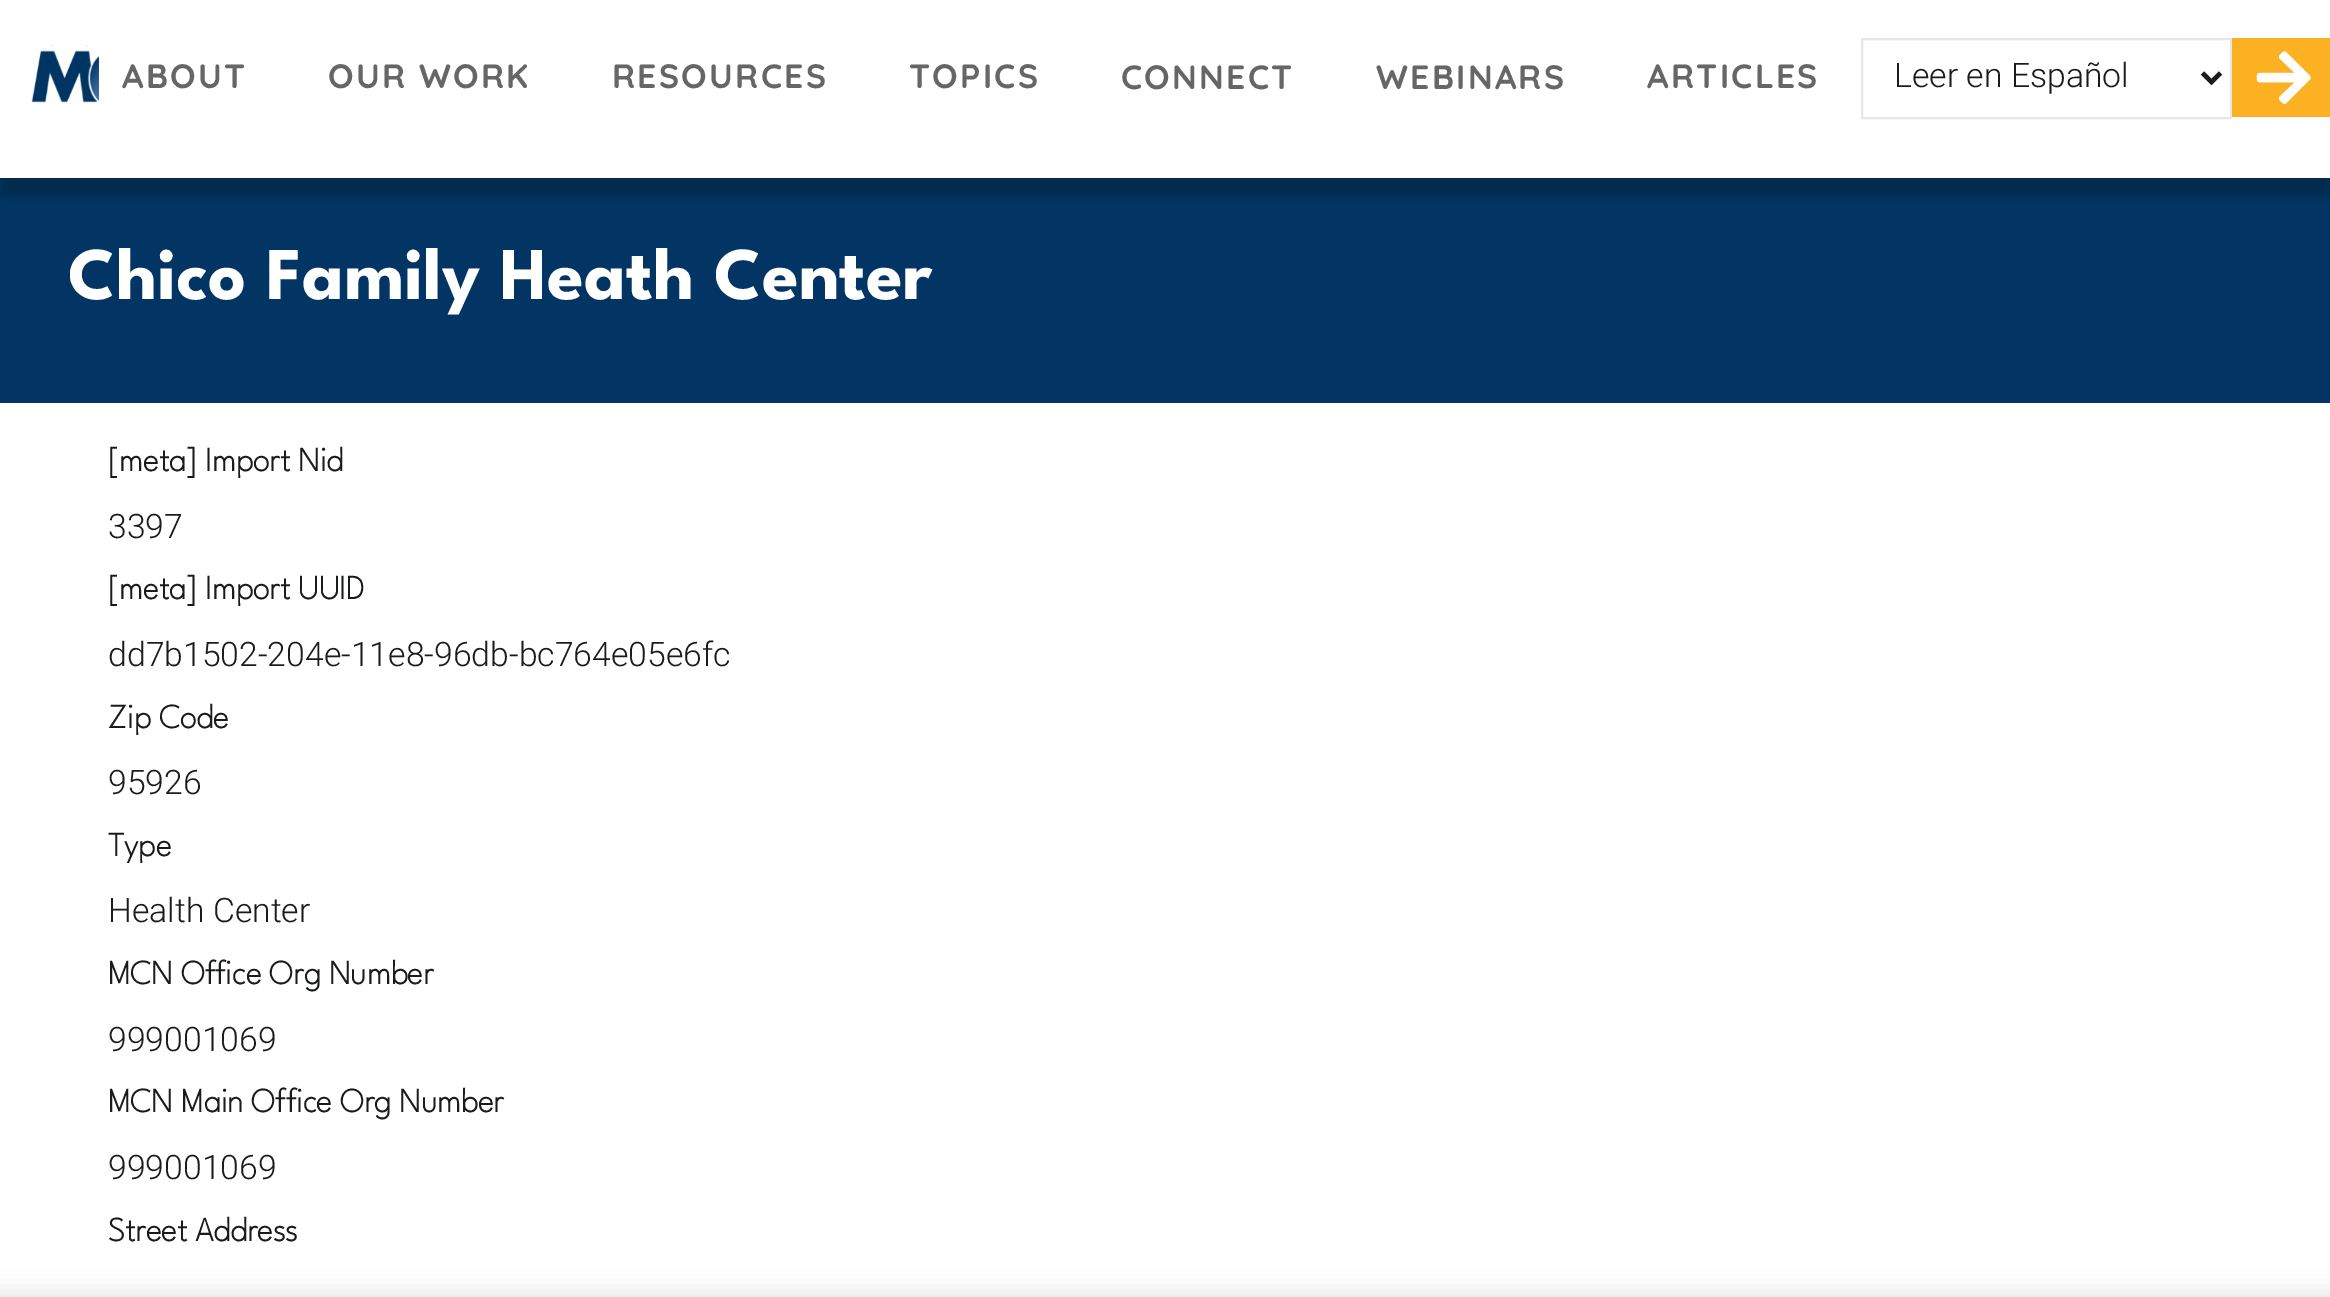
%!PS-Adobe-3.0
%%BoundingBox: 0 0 2330 1297
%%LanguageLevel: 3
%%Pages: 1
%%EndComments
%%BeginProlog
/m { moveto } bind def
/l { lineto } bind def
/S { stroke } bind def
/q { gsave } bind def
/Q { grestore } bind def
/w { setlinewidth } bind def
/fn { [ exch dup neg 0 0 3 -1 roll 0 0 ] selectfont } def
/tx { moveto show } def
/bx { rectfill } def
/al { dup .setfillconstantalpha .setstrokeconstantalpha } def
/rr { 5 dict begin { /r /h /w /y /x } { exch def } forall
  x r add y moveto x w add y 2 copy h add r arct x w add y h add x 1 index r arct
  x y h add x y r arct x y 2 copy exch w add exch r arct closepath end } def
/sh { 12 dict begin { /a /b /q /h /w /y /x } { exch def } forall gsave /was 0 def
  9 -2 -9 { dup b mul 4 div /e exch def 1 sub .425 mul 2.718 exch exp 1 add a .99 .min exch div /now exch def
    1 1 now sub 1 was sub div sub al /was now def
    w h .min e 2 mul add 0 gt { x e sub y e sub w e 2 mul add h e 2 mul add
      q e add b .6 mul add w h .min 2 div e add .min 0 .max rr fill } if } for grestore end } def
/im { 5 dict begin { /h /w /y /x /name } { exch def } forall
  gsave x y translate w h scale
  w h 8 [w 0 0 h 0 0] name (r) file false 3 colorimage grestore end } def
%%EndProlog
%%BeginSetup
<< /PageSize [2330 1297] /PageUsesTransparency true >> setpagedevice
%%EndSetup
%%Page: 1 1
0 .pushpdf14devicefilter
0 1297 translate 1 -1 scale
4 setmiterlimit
0.008 0.208 0.392 setrgbcolor
0 0 2330 1297 bx
1 setgray
0 0 2330 144 bx
q
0 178 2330 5 rectclip
0 setgray
0 11 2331 158 0 11 0.2 sh
Q
(image0.raw) 31 45 68 58 im
/Quicksand-Bold 33.75 fn
0.4 setgray
122 88 m 2.25 0 (ABOUT) ashow
328 88 m 2.25 0 (OUR WORK) ashow
612 88 m 2.25 0 (RESOURCES) ashow
909 88 m 2.25 0 (TOPICS) ashow
1121 89 m 2.25 0 (CONNECT) ashow
1376 89 m 2.25 0 (WEBINARS) ashow
1647 88 m 2.25 0 (ARTICLES) ashow
0.902 setgray
2 w
1862 39 369 79 rectstroke
0.098 0.106 0.11 setrgbcolor
4.5 w
2202.5 73 m 2211.5 82 l 2220.5 73 l S
/Roboto-Light 33.75 fn
(Leer en Español) 1894 87 tx
0.984 0.694 0.133 setrgbcolor
2232 38 98 79 bx
(image1.raw) 2256 51 55 53 im
0 setgray
0 162 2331 34 0 4.5 0.2 sh
1 setgray
0 144 2330 34 bx
/LeagueSpartan-Bold 74.25 fn
(Chico Family Heath Center) 68 299 tx
0 403 2330 894 bx
/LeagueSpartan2-Bold 33.75 fn
0.098 0.106 0.11 setrgbcolor
([meta] Import Nid) 108 471 tx
/Roboto-Light 33.75 fn
(3397) 108 538 tx
/LeagueSpartan2-Bold 33.75 fn
([meta] Import UUID) 108 599 tx
/Roboto-Light 33.75 fn
(dd7b1502-204e-11e8-96db-bc764e05e6fc) 108 666 tx
/LeagueSpartan2-Bold 33.75 fn
(Zip Code) 108 728 tx
/Roboto-Light 33.75 fn
(95926) 108 794 tx
/LeagueSpartan2-Bold 33.75 fn
(Type) 108 856 tx
/Roboto-Light 33.75 fn
(Health Center) 108 922 tx
/LeagueSpartan2-Bold 33.75 fn
(MCN Office Org Number) 108 984 tx
/Roboto-Light 33.75 fn
(999001069) 108 1051 tx
/LeagueSpartan2-Bold 33.75 fn
(MCN Main Office Org Number) 108 1112 tx
/Roboto-Light 33.75 fn
(999001069) 108 1179 tx
/LeagueSpartan2-Bold 33.75 fn
(Street Address) 108 1241 tx
0 setgray
-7 1292 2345 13 0 11 0.1 sh
.poppdf14devicefilter showpage
%%EOF
